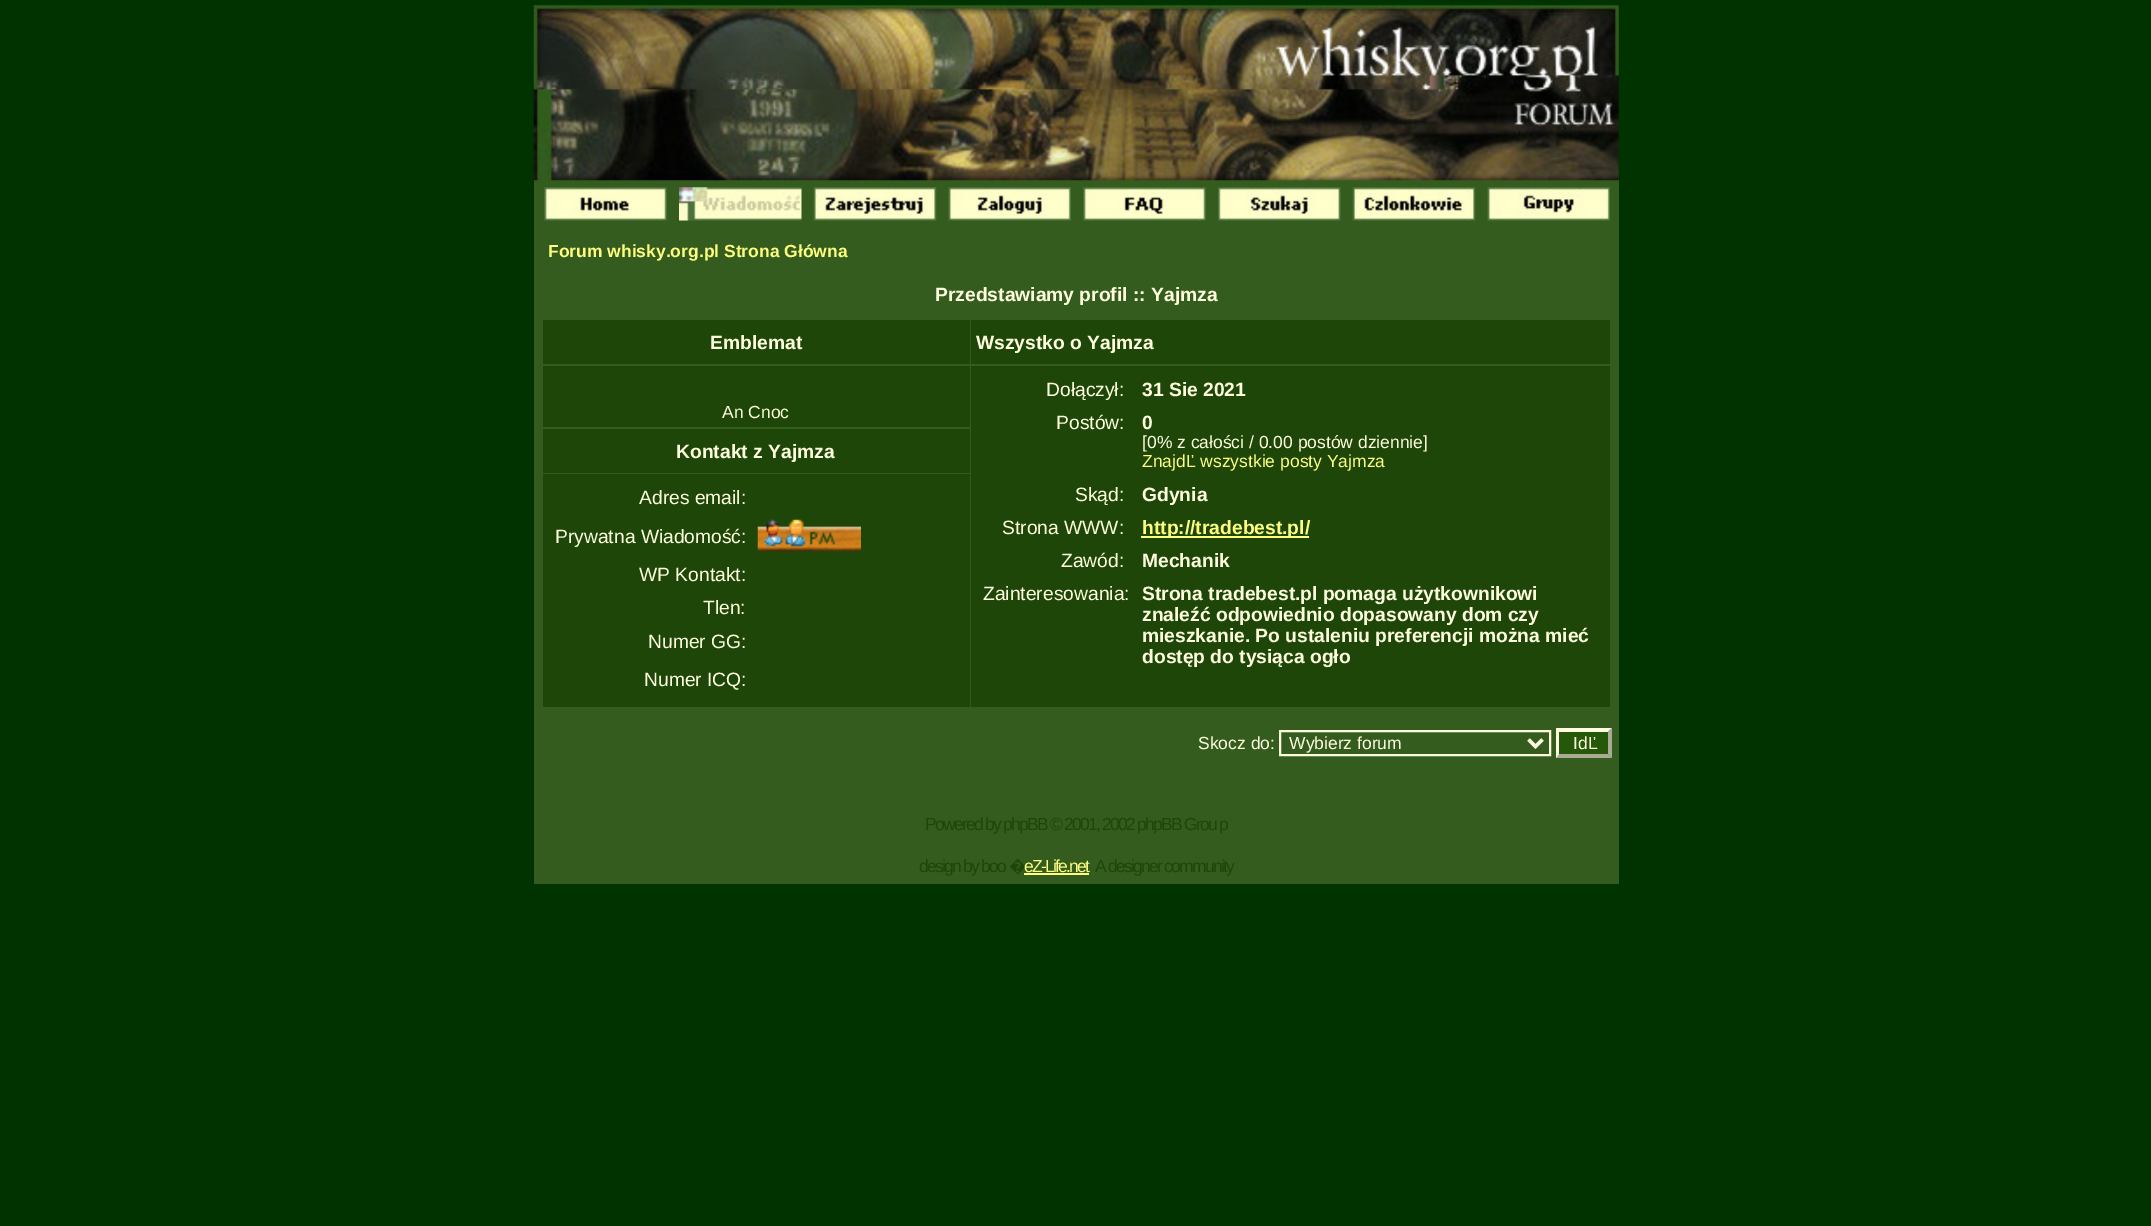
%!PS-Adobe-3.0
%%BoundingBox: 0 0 2151 1226
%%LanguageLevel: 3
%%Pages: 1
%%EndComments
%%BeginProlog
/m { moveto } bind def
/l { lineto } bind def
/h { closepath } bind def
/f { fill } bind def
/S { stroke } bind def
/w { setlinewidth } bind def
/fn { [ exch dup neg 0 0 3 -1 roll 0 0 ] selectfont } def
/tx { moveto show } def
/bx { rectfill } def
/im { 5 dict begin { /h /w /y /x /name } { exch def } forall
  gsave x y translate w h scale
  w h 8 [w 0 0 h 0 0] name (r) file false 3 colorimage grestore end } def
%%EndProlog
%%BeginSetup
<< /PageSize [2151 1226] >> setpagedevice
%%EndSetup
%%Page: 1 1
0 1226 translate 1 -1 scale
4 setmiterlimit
0.004 0.2 0 setrgbcolor
0 0 2151 1226 bx
0.204 0.361 0.118 setrgbcolor
534 180 1085 704 bx
(image0.raw) 533 5 1086 176 im
(image1.raw) 544 187 123 34 im
(image2.raw) 679 187 123 34 im
(image3.raw) 813 187 124 34 im
(image4.raw) 948 187 123 34 im
(image5.raw) 1083 187 123 34 im
(image6.raw) 1218 187 123 34 im
(image7.raw) 1352 187 124 34 im
(image8.raw) 1487 187 123 34 im
/LiberationSans-Bold 17.5 fn
1 1 0.502 setrgbcolor
(Forum whisky.org.pl Strona Główna) 548 257 tx
/LiberationSans-Bold 19.25 fn
1 1 0.875 setrgbcolor
(Przedstawiamy profil :: Yajmza) 935 301 tx
0.118 0.275 0.031 setrgbcolor
543 320 427 44 bx
1 1 0.875 setrgbcolor
(Emblemat) 710 349 tx
0.118 0.275 0.031 setrgbcolor
971 320 639 44 bx
1 1 0.875 setrgbcolor
(Wszystko o Yajmza) 976 349 tx
0.118 0.275 0.031 setrgbcolor
543 366 427 61 bx
/LiberationSans-Regular 17.5 fn
1 1 0.875 setrgbcolor
(An Cnoc) 722 418 tx
0.118 0.275 0.031 setrgbcolor
971 366 639 341 bx
/LiberationSans-Regular 19.25 fn
1 1 0.875 setrgbcolor
(Dołączył:) 1046 396 tx
/LiberationSans-Bold 19.25 fn
(31 Sie 2021) 1142 396 tx
/LiberationSans-Regular 19.25 fn
(Postów:) 1056 429 tx
/LiberationSans-Bold 19.25 fn
(0) 1142 429 tx
/LiberationSans-Regular 17.5 fn
([0% z całości / 0.00 postów dziennie]) 1142 448 tx
1 1 0.502 setrgbcolor
(ZnajdĽ wszystkie posty Yajmza) 1142 467 tx
/LiberationSans-Regular 19.25 fn
1 1 0.875 setrgbcolor
(Skąd:) 1075 501 tx
/LiberationSans-Bold 19.25 fn
(Gdynia) 1142 501 tx
/LiberationSans-Regular 19.25 fn
(Strona WWW:) 1002 534 tx
1 1 0.502 setrgbcolor
1141 536 168 2 bx
/LiberationSans-Bold 19.25 fn
(http://tradebest.pl/) 1142 534 tx
/LiberationSans-Regular 19.25 fn
1 1 0.875 setrgbcolor
(Zawód:) 1061 567 tx
/LiberationSans-Bold 19.25 fn
(Mechanik) 1142 567 tx
/LiberationSans-Regular 19.25 fn
(Zainteresowania:) 983 600 tx
/LiberationSans-Bold 19.25 fn
(Strona tradebest.pl pomaga użytkownikowi) 1142 600 tx
(znaleźć odpowiednio dopasowany dom czy) 1142 621 tx
(mieszkanie. Po ustaleniu preferencji można mieć) 1142 642 tx
(dostęp do tysiąca ogło) 1142 663 tx
0.118 0.275 0.031 setrgbcolor
543 429 427 44 bx
1 1 0.875 setrgbcolor
(Kontakt z Yajmza) 676 458 tx
0.118 0.275 0.031 setrgbcolor
543 474 427 233 bx
/LiberationSans-Regular 19.25 fn
1 1 0.875 setrgbcolor
(Adres email:) 639 504 tx
(Prywatna Wiadomość:) 555 543 tx
(image9.raw) 757 519 104 33 im
(WP Kontakt:) 639 581 tx
(Tlen:) 703 614 tx
(Numer GG:) 648 648 tx
(Numer ICQ:) 644 686 tx
/LiberationSans-Regular 17.5 fn
(Skocz do:) 1198 749 tx
2 w
1280 731 270 24 rectstroke
3.5 w
1528.5 739.5 m 1535.5 746.5 l 1542.5 739.5 l S
(Wybierz forum) 1289 749 tx
0.149 0.345 0.039 setrgbcolor
1556 728 56 30 bx
1 1 0.875 setrgbcolor
1556 728 m 1612 728 l 1608 732 l 1559 732 l h f
0.667 0.667 0.584 setrgbcolor
1612 728 m 1612 758 l 1608 754 l 1608 731.5 l h f
1612 758 m 1556 758 l 1559 754 l 1608 754 l h f
1 1 0.875 setrgbcolor
1556 758 m 1556 728 l 1559 731.5 l 1559 754 l h f
(IdĽ) 1573 749 tx
0.118 0.275 0.031 setrgbcolor
925 830 m -1.75 0 (Powered by phpBB © 2001, 2002 phpBB Grou p) ashow
919 872 m -1.75 0 (design by boo) ashow
/NotoSans-Regular 17.5 fn
1009 872 m -1.75 0 (�) ashow
1 1 0.502 setrgbcolor
1024 873 65 2 bx
/LiberationSans-Regular 17.5 fn
1024 872 m -1.75 0 (eZ-Life.net) ashow
0.118 0.275 0.031 setrgbcolor
1095 872 m -1.75 0 (A designer community) ashow
showpage
%%EOF
